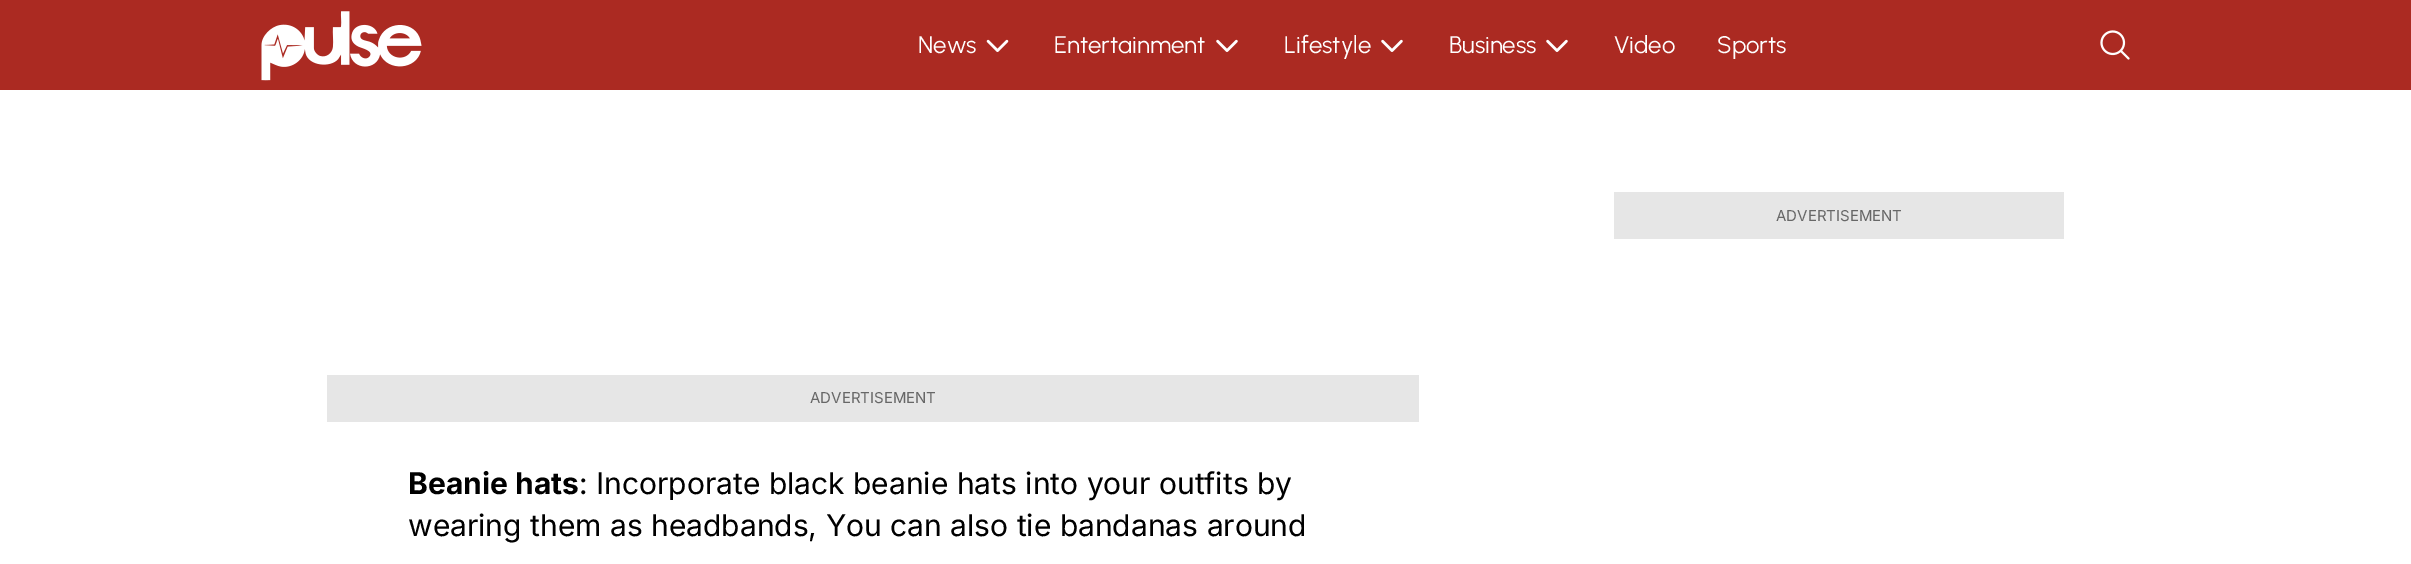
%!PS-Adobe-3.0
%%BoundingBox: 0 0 2411 564
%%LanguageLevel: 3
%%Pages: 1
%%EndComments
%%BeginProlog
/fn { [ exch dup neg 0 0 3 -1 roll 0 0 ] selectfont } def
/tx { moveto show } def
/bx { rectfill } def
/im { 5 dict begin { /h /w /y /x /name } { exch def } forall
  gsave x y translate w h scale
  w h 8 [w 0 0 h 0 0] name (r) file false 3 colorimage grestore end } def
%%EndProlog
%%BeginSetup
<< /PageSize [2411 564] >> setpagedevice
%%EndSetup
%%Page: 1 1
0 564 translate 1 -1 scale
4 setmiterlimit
1 setgray
0 0 2411 564 bx
0.671 0.165 0.133 setrgbcolor
0 0 2411 90 bx
(image0.raw) 261 11 161 70 im
/Urbanist-Regular 24 fn
1 setgray
(News) 918 53 tx
(image1.raw) 986 39 23 13 im
(Entertainment) 1054 53 tx
(image2.raw) 1216 39 22 13 im
(Lifestyle) 1284 53 tx
(image2.raw) 1381 39 22 13 im
(Business) 1449 53 tx
(image2.raw) 1546 39 22 13 im
(Video) 1614 53 tx
(Sports) 1717 53 tx
(image3.raw) 2100 30 30 30 im
0.902 setgray
1614 192 450 47 bx
/Inter-Regular 15 fn
0.404 setgray
(ADVERTISEMENT) 1776 221 tx
0.902 setgray
327 375 1092 47 bx
0.404 setgray
(ADVERTISEMENT) 810 403 tx
/Inter-Bold 30 fn
0 setgray
(Beanie hats) 408 494 tx
/Inter-Regular 30 fn
(: Incorporate black beanie hats into your outfits by) 579 494 tx
(wearing them as headbands, You can also tie bandanas around) 408 536 tx
showpage
%%EOF
